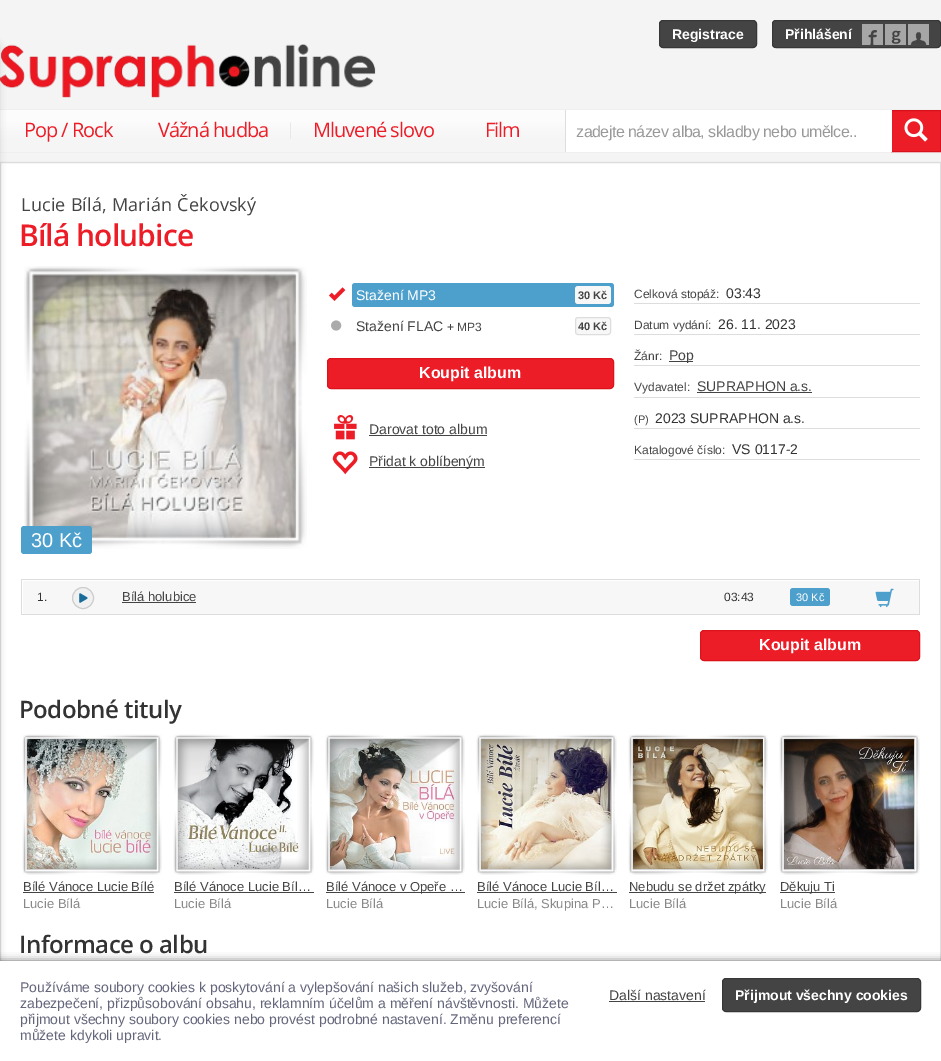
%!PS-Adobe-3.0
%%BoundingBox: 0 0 941 1061
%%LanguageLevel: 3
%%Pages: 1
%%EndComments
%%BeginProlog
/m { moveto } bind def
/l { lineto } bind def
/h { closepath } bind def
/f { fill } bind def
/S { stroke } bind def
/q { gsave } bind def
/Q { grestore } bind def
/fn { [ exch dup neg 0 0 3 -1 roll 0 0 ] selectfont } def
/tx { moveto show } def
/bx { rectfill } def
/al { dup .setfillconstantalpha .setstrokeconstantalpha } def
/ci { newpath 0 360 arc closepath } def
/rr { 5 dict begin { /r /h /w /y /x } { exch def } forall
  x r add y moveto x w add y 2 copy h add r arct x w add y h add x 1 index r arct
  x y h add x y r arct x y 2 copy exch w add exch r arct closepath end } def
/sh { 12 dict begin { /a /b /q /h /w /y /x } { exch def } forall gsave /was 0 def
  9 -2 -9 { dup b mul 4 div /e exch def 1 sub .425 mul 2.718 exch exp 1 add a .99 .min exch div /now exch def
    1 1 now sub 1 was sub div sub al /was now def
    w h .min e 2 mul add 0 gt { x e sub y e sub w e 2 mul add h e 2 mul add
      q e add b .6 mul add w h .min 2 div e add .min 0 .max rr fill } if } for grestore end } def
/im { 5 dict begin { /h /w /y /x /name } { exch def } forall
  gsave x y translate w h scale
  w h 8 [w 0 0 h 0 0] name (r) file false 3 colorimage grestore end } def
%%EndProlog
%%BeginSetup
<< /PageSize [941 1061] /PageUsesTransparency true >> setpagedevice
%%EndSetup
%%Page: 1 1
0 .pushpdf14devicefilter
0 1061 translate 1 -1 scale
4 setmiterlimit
0.957 setgray
0 0 941 1061 bx
(image1.raw) 0 44 376 54 im
0.882 setgray
0 110 941 42 0 0.5 1 sh
q 0 110 m 565 110 l 565 152 l 0 152 l h clip newpath
<< /ShadingType 2 /ColorSpace /DeviceRGB /Coords [471 110 471 152] /Extend [true true] /Function << /FunctionType 3 /Domain [0 1] /Functions [<< /FunctionType 2 /Domain [0 1] /C0 [0.988 0.988 0.988] /C1 [0.988 0.988 0.988] /N 1 >> << /FunctionType 2 /Domain [0 1] /C0 [0.988 0.988 0.988] /C1 [0.961 0.961 0.961] /N 1 >> << /FunctionType 2 /Domain [0 1] /C0 [0.961 0.961 0.961] /C1 [0.961 0.961 0.961] /N 1 >>] /Bounds [0.25 0.75] /Encode [0 1 0 1 0 1] >> >> shfill Q
0 162 941 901 0 0.5 1 sh
1 setgray
1 163 939 798 bx
0.867 setgray
0.5 162.5 940 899 rectstroke
0.545 setgray
-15 46 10 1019 0 5 1 sh
0.271 0.267 0.267 setrgbcolor
659.5 20.5 97 27 3.5 rr q f Q
0.22 0.216 0.216 setrgbcolor
S
/LiberationSans-Bold 14 fn
1 setgray
(Registrace) 672 39 tx
0.271 0.267 0.267 setrgbcolor
772 20 169 28 4 rr f
(image0.raw) 862 24 67 21 im
0.22 0.216 0.216 setrgbcolor
772.5 20.5 168 27 3.5 rr S
1 setgray
(Přihlášení) 785 39 tx
/OpenSans-Regular 20 fn
0.925 0.114 0.153 setrgbcolor
24 137 m -1 0 (Pop / Rock) ashow
158 137 m -1 0 (Vážná hudba) ashow
/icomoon-Regular 16 fn
0.886 setgray
(|) 286 137 tx
/OpenSans-Regular 20 fn
0.925 0.114 0.153 setrgbcolor
313 137 m -1 0 (Mluvené slovo) ashow
485 137 m -1 0 (Film) ashow
891.5 110.5 m 940.5 110.5 l 940.5 151.5 l 891.5 151.5 l h q f Q
0.847 0.071 0.11 setrgbcolor
S
1 setgray
566 110 326 42 bx
0.867 setgray
565 110 1 42 bx
/LiberationSans-Regular 16 fn
0.6 setgray
576 137 m -0.5 0 (zadejte název alba, skladby nebo umělce..) ashow
(image2.raw) 904 118 24 24 im
/OpenSans-Regular 18 fn
0.271 0.267 0.267 setrgbcolor
21 211 m 0.2 0 (Lucie Bílá, Marián Čekovský) ashow
/OpenSans-SemiBold 30 fn
0.925 0.114 0.153 setrgbcolor
19 246 m -0.9 0 (Bílá holubice) ashow
(image3.raw) 329 287 17 14 im
0.302 0.624 0.8 setrgbcolor
352 283 262 24 3 rr f
/LiberationSans-Regular 14 fn
1 setgray
(Stažení MP3) 356 300 tx
0.969 setgray
575 286 36 18 3 rr f
/LiberationSans-Bold 11 fn
0.271 0.267 0.267 setrgbcolor
(30 Kč) 578 299 tx
(image4.raw) 331 320 11 11 im
/LiberationSans-Regular 14 fn
(Stažení FLAC) 356 331 tx
/LiberationSans-Regular 12 fn
(+ MP3) 447 331 tx
0.969 setgray
575.5 317.5 35 17 2.5 rr q f Q
0.867 setgray
S
/LiberationSans-Bold 11 fn
0.271 0.267 0.267 setrgbcolor
(40 Kč) 578 330 tx
0.925 0.114 0.153 setrgbcolor
327.5 358.5 286 30 3.5 rr q f Q
0.867 0.075 0.11 setrgbcolor
S
/LiberationSans-Bold 16 fn
1 setgray
(Koupit album) 419 378 tx
(image5.raw) 334 415 23 25 im
/LiberationSans-Regular 14 fn
0.271 0.267 0.267 setrgbcolor
(Darovat toto album) 369 434 tx
369 435 118 1 bx
(image6.raw) 332 451 26 24 im
369 467 116 1 bx
(Přidat k oblíbeným) 369 466 tx
0.867 setgray
634 303 286 1 bx
/LiberationSans-Regular 12 fn
0.271 0.267 0.267 setrgbcolor
(Celková stopáž:) 634 298 tx
/LiberationSans-Regular 14 fn
0.2 setgray
(03:43) 726 298 tx
0.867 setgray
634 334 286 1 bx
/LiberationSans-Regular 12 fn
0.271 0.267 0.267 setrgbcolor
(Datum vydání:) 634 329 tx
/LiberationSans-Regular 14 fn
0.2 setgray
(26. 11. 2023) 718 329 tx
0.867 setgray
634 365 286 1 bx
/LiberationSans-Regular 12 fn
0.271 0.267 0.267 setrgbcolor
(Žánr:) 634 360 tx
669 361 24 1 bx
/LiberationSans-Regular 14 fn
(Pop) 669 360 tx
0.867 setgray
634 397 286 1 bx
/LiberationSans-Regular 12 fn
0.271 0.267 0.267 setrgbcolor
(Vydavatel:) 634 391 tx
/LiberationSans-Regular 14 fn
(SUPRAPHON a.s.) 697 391 tx
697 392 115 1 bx
0.867 setgray
634 428 286 1 bx
/LiberationSans-Regular 11 fn
0.271 0.267 0.267 setrgbcolor
(\(P\)) 634 423 tx
/LiberationSans-Regular 14 fn
0.2 setgray
(2023 SUPRAPHON a.s.) 655 423 tx
0.867 setgray
634 459 286 1 bx
/LiberationSans-Regular 12 fn
0.271 0.267 0.267 setrgbcolor
(Katalogové číslo:) 634 454 tx
/LiberationSans-Regular 14 fn
0.2 setgray
(VS 0117-2) 732 454 tx
(image8.raw) 32 274 264 264 im
(image7.raw) 24 266 283 283 im
0.302 0.624 0.8 setrgbcolor
21 526 71 28 3 rr f
/LiberationSans-Regular 20 fn
1 setgray
(30 Kč) 31 547 tx
0.867 setgray
21 614 899 1 bx
0.969 setgray
23 581 896 33 bx
0.867 setgray
21 579 899 1 bx
919 613 1 2 bx
919 579 1 35 bx
21 613 1 2 bx
21 579 1 35 bx
/LiberationSans-Regular 12 fn
0.2 setgray
(1.) 37 601 tx
0.945 setgray
83 598 10.5 ci q f Q
0.8 setgray
S
(image9.raw) 79 593 9 10 im
/LiberationSans-Regular 13 fn
0.271 0.267 0.267 setrgbcolor
(Bílá holubice) 122 601 tx
122 602 74 1 bx
/LiberationSans-Regular 12 fn
0.2 setgray
(03:43) 724 601 tx
0.302 0.624 0.8 setrgbcolor
790 588 40 18 3 rr f
/LiberationSans-Regular 11 fn
1 setgray
(30 Kč) 796 601 tx
(image10.raw) 875 588 19 20 im
0.925 0.114 0.153 setrgbcolor
700.5 630.5 219 30 3.5 rr q f Q
0.867 0.075 0.11 setrgbcolor
S
/LiberationSans-Bold 16 fn
1 setgray
(Koupit album) 759 650 tx
/OpenSans-SemiBold 24 fn
0.2 setgray
19 718 m -0.5 0 (Podobné tituly) ashow
(image12.raw) 27 739 130 130 im
(image11.raw) 22 734 140 141 im
/LiberationSans-Regular 13 fn
0.271 0.267 0.267 setrgbcolor
(Bílé Vánoce Lucie Bílé) 23 891 tx
23 892 131 1 bx
0.533 setgray
(Lucie Bílá) 23 908 tx
(image14.raw) 178 739 123 130 im
(image13.raw) 173 734 141 141 im
0.271 0.267 0.267 setrgbcolor
(Bílé Vánoce Lucie Bíl…) 174 891 tx
174 892 140 1 bx
0.533 setgray
(Lucie Bílá) 174 908 tx
(image16.raw) 330 739 125 130 im
(image15.raw) 325 734 140 141 im
0.271 0.267 0.267 setrgbcolor
326 892 139 1 bx
(Bílé Vánoce v Opeře …) 326 891 tx
0.533 setgray
(Lucie Bílá) 326 908 tx
(image18.raw) 481 739 130 130 im
(image17.raw) 476 734 141 141 im
0.271 0.267 0.267 setrgbcolor
(Bílé Vánoce Lucie Bíl…) 477 891 tx
477 892 140 1 bx
0.533 setgray
(Lucie Bílá, Skupina P…) 477 908 tx
(image20.raw) 633 739 130 130 im
(image19.raw) 628 734 140 141 im
0.271 0.267 0.267 setrgbcolor
629 892 137 1 bx
(Nebudu se držet zpátky) 629 891 tx
0.533 setgray
(Lucie Bílá) 629 908 tx
(image22.raw) 784 739 130 130 im
(image21.raw) 779 734 141 141 im
0.271 0.267 0.267 setrgbcolor
780 892 55 1 bx
(Děkuju Ti) 780 891 tx
0.533 setgray
(Lucie Bílá) 780 908 tx
/OpenSans-SemiBold 24 fn
0.2 setgray
19 953 m -0.5 0 (Informace o albu) ashow
0 setgray
0 961 941 100 0 4 0.6 sh
1 setgray
0 961 941 100 bx
/LiberationSans-Regular 14 fn
0.388 0.396 0.482 setrgbcolor
(Používáme soubory cookies k poskytování a vylepšování našich služeb, zvyšování) 20 992 tx
(zabezpečení, přizpůsobování obsahu, reklamním účelům a měření návštěvnosti. Můžete) 20 1008 tx
(přijmout všechny soubory cookies nebo provést podrobné nastavení. Změnu preferencí) 20 1024 tx
(můžete kdykoli upravit.) 20 1040 tx
0.271 0.267 0.267 setrgbcolor
(Další nastavení) 609 1000 tx
609 1001 96 1 bx
722.5 978.5 198 33 3.5 rr q f Q
0.22 0.216 0.216 setrgbcolor
S
/LiberationSans-Bold 14 fn
1 setgray
(Přijmout všechny cookies) 735 1000 tx
.poppdf14devicefilter showpage
%%EOF
